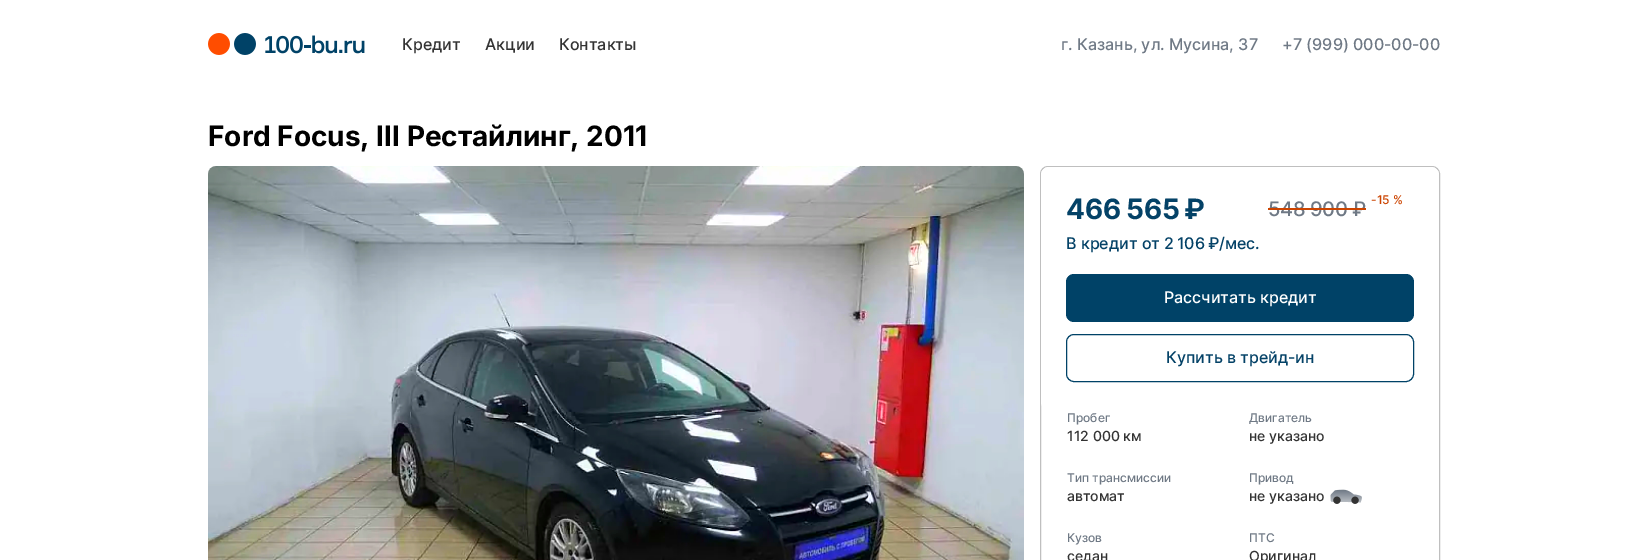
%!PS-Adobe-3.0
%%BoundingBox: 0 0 1648 560
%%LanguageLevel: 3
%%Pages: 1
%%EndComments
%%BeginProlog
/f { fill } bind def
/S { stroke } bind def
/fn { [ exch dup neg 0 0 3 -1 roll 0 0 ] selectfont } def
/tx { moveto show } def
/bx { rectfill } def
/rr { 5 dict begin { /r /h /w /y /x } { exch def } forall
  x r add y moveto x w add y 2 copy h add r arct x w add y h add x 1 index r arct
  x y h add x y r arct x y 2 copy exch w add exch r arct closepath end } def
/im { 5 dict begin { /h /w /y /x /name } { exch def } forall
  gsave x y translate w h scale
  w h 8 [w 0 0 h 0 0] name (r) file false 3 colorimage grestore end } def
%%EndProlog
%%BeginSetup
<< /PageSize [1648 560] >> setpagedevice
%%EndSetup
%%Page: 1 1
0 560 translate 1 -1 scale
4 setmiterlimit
1 setgray
0 0 1648 560 bx
(image0.raw) 208 33 157 22 im
/Inter-Medium 16 fn
0.2 setgray
(Кредит) 402 50 tx
(Акции) 485 50 tx
(Контакты) 559 50 tx
0.435 0.475 0.522 setrgbcolor
(г. Казань, ул. Мусина, 37) 1061 50 tx
(+7 \(999\) 000-00-00) 1282 50 tx
/Inter-Bold 28 fn
0 setgray
(Ford Focus, III Рестайлинг, 2011) 208 146 tx
(image1.raw) 208 166 816 394 im
0.749 setgray
1040.5 166.5 399 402 7.5 rr S
1 setgray
1041 167 398 243 8 rr f
0.016 0.259 0.404 setrgbcolor
(466 565 ₽) 1066 219 tx
/Inter-Medium 12 fn
0.8 0.267 0 setrgbcolor
(-15 %) 1371 204 tx
/Inter-Medium 20 fn
0.435 0.475 0.522 setrgbcolor
(548 900 ₽) 1268 216 tx
0.8 0.267 0 setrgbcolor
1268 208 98 2 bx
/Inter-Medium 16 fn
0.016 0.259 0.404 setrgbcolor
(В кредит от 2 106 ₽/мес.) 1066 249 tx
0 0.259 0.404 setrgbcolor
1066 274 348 48 8 rr f
1 setgray
(Рассчитать кредит) 1164 303 tx
0 0.259 0.404 setrgbcolor
1066.5 334.5 347 47 7.5 rr S
0.016 0.259 0.404 setrgbcolor
(Купить в трейд-ин) 1166 363 tx
/Inter-Medium 12 fn
0.435 0.475 0.522 setrgbcolor
(Пробег) 1067 422 tx
/Inter-Medium 14 fn
0.2 setgray
(112 000 км) 1067 441 tx
/Inter-Medium 12 fn
0.435 0.475 0.522 setrgbcolor
(Двигатель) 1249 422 tx
/Inter-Medium 14 fn
0.2 setgray
(не указано) 1249 441 tx
/Inter-Medium 12 fn
0.435 0.475 0.522 setrgbcolor
(Тип трансмиссии) 1067 482 tx
/Inter-Medium 14 fn
0.2 setgray
(автомат) 1067 501 tx
/Inter-Medium 12 fn
0.435 0.475 0.522 setrgbcolor
(Привод) 1249 482 tx
/Inter-Medium 14 fn
0.2 setgray
(не указано) 1249 501 tx
(image2.raw) 1330 489 32 15 im
/Inter-Medium 12 fn
0.435 0.475 0.522 setrgbcolor
(Кузов) 1067 542 tx
/Inter-Medium 14 fn
0.2 setgray
(седан) 1067 561 tx
/Inter-Medium 12 fn
0.435 0.475 0.522 setrgbcolor
(ПТС) 1249 542 tx
/Inter-Medium 14 fn
0.2 setgray
(Оригинал) 1249 561 tx
showpage
%%EOF
